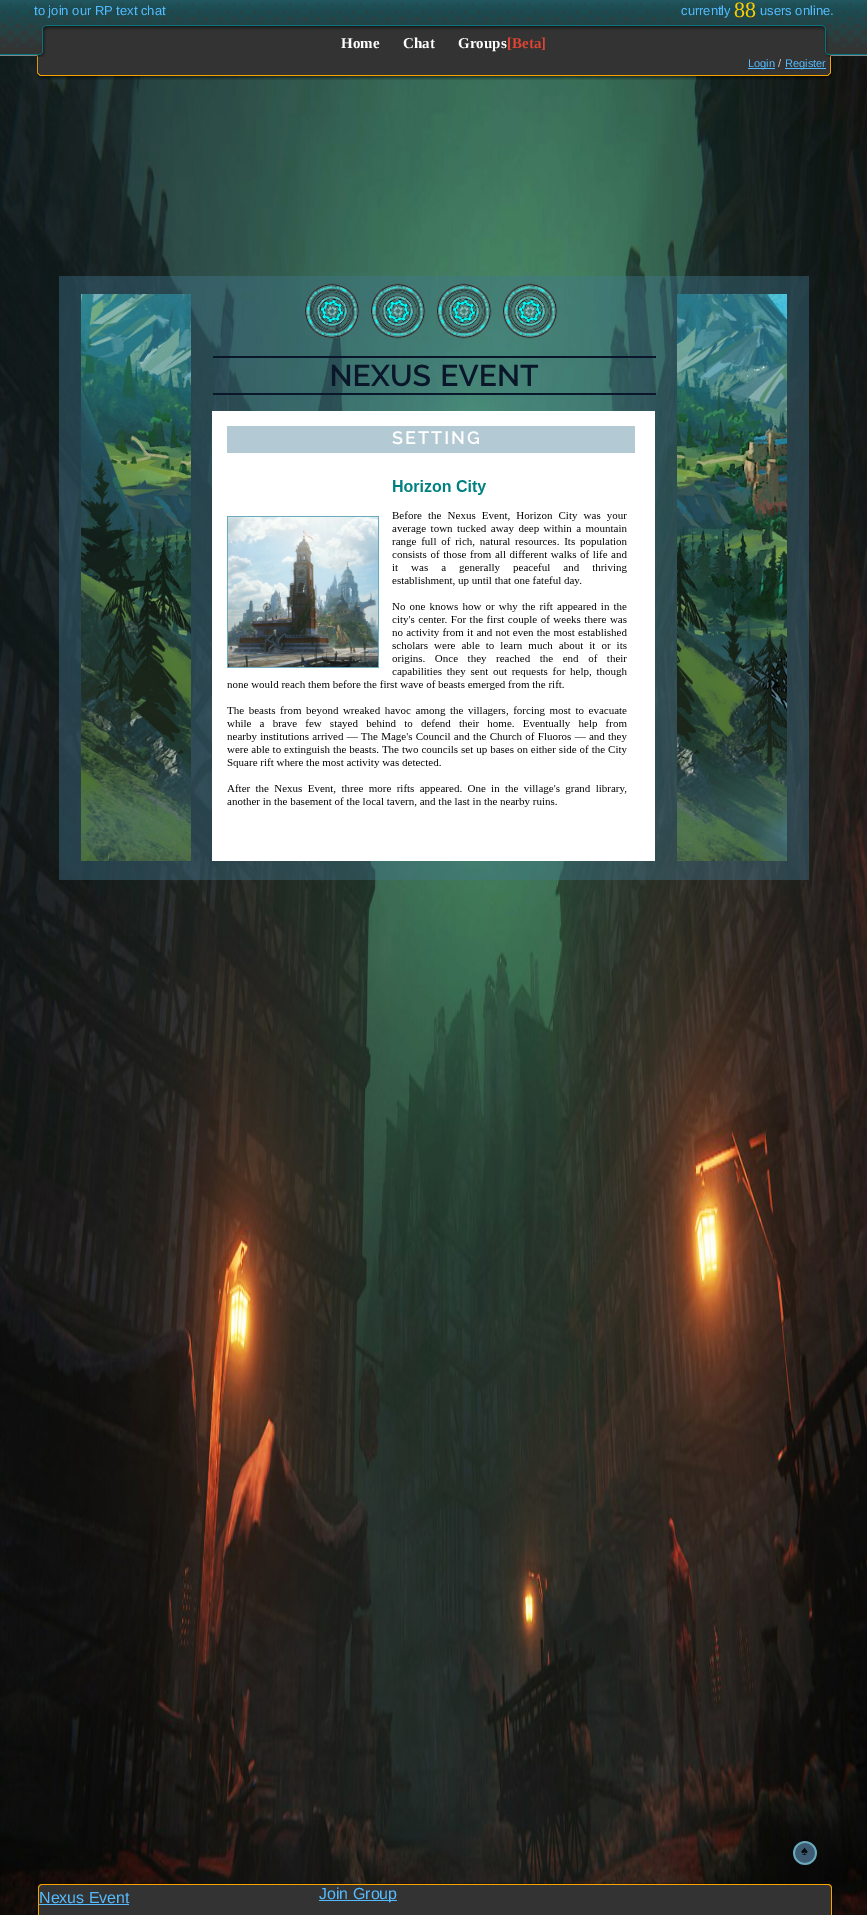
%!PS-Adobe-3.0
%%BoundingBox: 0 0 867 1915
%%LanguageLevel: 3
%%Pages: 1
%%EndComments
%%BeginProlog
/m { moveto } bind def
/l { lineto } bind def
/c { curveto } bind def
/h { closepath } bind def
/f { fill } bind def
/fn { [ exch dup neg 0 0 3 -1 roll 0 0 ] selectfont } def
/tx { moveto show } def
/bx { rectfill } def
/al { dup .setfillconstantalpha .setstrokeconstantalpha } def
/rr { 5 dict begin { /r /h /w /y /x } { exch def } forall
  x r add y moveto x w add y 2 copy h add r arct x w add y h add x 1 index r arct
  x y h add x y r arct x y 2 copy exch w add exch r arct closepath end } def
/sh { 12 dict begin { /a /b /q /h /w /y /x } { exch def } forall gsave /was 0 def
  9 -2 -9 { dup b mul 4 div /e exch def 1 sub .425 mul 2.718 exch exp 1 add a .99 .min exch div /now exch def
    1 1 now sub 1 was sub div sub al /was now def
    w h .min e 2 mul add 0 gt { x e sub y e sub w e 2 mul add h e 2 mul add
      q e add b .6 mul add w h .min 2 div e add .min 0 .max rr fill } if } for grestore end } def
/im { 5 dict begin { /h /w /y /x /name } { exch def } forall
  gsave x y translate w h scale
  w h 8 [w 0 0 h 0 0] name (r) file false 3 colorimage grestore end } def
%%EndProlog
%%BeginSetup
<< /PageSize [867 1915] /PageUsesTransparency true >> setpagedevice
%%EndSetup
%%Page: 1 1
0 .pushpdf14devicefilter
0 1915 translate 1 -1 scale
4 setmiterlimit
1 setgray
0 0 867 1915 bx
(image0.raw) 0 55 867 1 im
(image1.raw) 0 0 867 56 im
/LiberationSans-Regular 13 fn
0.333 0.733 1 setrgbcolor
(to join our RP text chat) 34 15 tx
(currently) 681 15 tx
/LiberationSerif-Regular 22 fn
1 0.8 0 setrgbcolor
(88) 734 17 tx
/LiberationSans-Regular 13 fn
0.333 0.733 1 setrgbcolor
(users online.) 760 15 tx
(image5.raw) 0 56 867 1859 im
(image2.raw) 34 25 800 35 im
/LiberationSerif-Bold 15 fn
1 setgray
(Home) 341 48 tx
(Chat) 403 48 tx
(Groups) 458 48 tx
0.867 0.267 0.2 setrgbcolor
([Beta]) 507 48 tx
(image3.raw) 37 57 796 14 im
0.333 0.733 1 setrgbcolor
748 68 27 1 bx
/LiberationSans-Regular 11 fn
(Login) 748 67 tx
0.8 setgray
(/) 778 67 tx
0.333 0.733 1 setrgbcolor
785 68 41 1 bx
(Register) 785 67 tx
(image4.raw) 37 71 796 9 im
0 setgray
39 1885 794 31 4 1.5 0.6 sh
0.2 setgray
42 1884 m 828 1884 l 830 1884 832 1886 832 1888 c 832 1915 l 38 1915 l 38 1888 l 38 1886 40 1884 42 1884 c h f
0.976 0.639 0 setrgbcolor
42 1884 m 828 1884 l 830 1884 832 1886 832 1888 c 832 1915 l 38 1915 l 38 1888 l 38 1886 40 1884 42 1884 c h 42 1885 m 828 1885 l 830 1885 831 1886 831 1888 c 831 1915 l 39 1915 l 39 1888 l 39 1886 40 1885 42 1885 c h eofill
/LiberationSans-Regular 16 fn
0.333 0.733 1 setrgbcolor
(Nexus Event) 39 1903 tx
39 1904 90 1 bx
319 1900 78 1 bx
(Join Group) 319 1899 tx
.poppdf14devicefilter showpage
%%EOF
